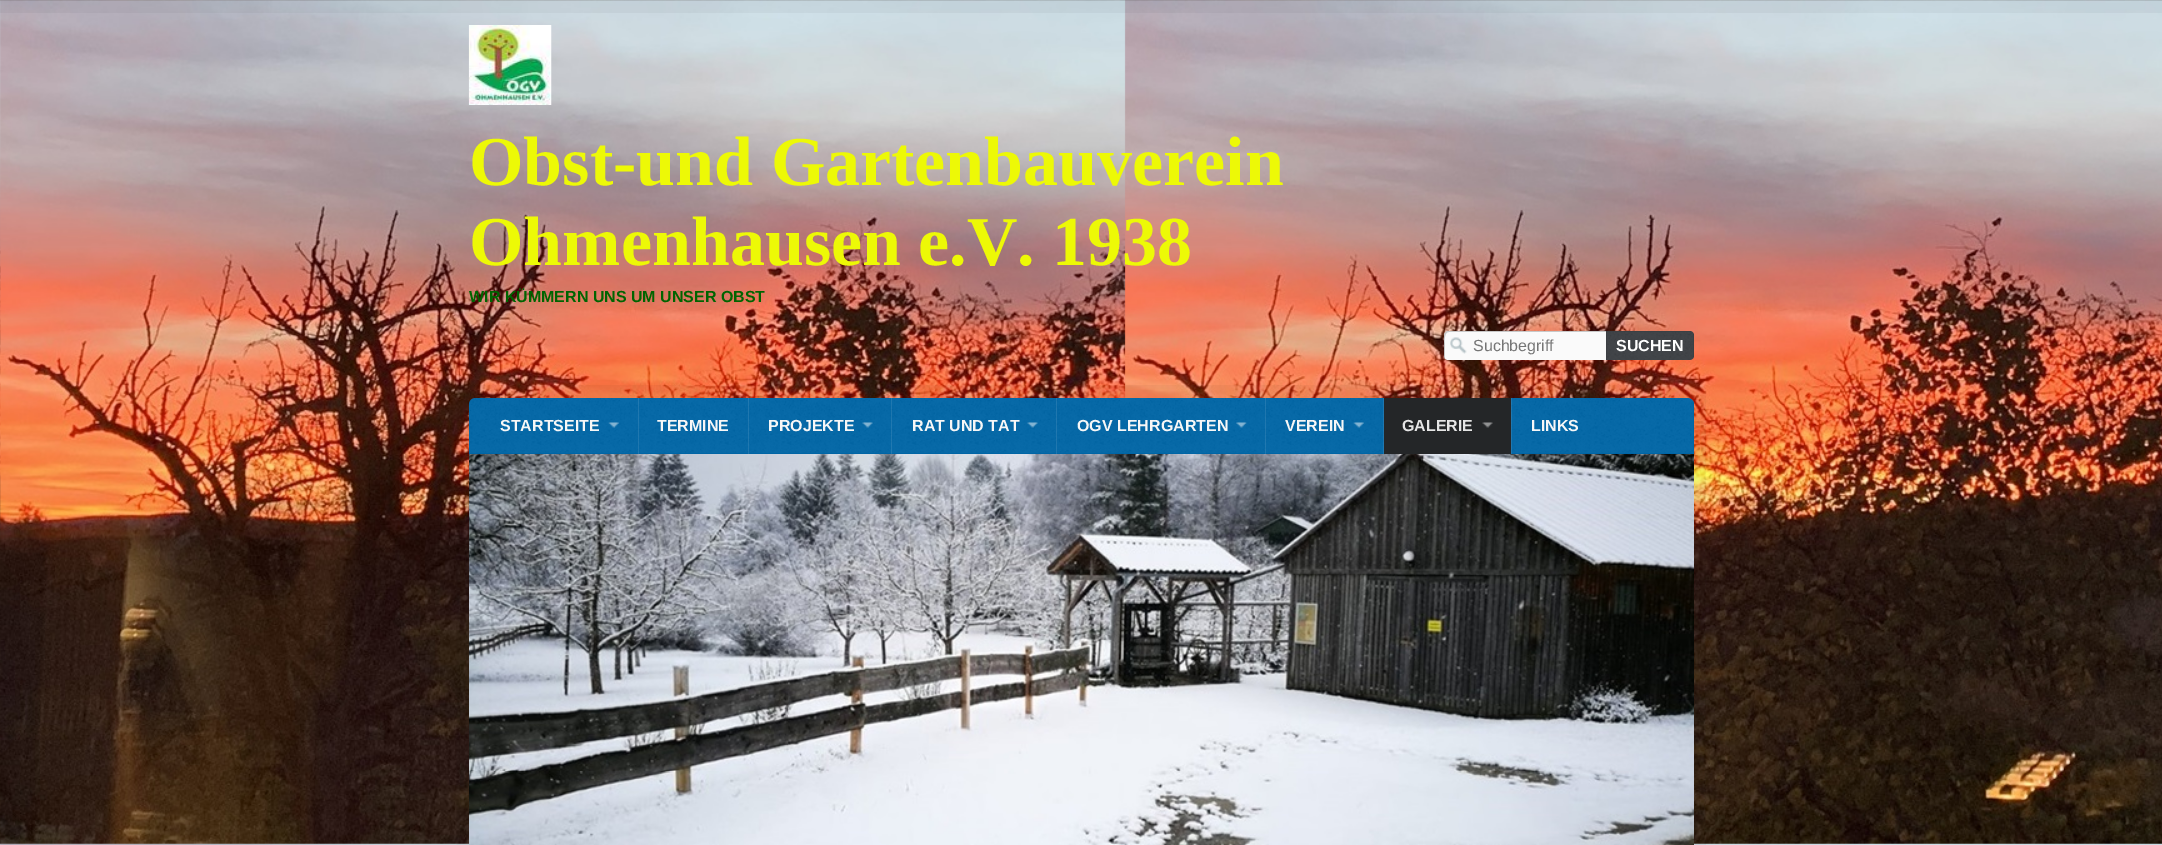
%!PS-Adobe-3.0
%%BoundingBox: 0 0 2162 845
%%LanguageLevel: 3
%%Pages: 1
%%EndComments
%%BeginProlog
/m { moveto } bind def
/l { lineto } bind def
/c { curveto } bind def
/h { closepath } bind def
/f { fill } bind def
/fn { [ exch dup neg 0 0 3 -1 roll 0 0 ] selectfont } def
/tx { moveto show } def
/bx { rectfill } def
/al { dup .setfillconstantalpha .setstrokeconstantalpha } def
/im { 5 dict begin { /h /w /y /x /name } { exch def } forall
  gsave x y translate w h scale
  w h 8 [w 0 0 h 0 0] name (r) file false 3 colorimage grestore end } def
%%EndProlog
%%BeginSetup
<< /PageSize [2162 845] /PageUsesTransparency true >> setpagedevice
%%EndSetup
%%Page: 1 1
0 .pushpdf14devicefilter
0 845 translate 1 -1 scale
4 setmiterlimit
1 setgray
0 0 2162 845 bx
(image0.raw) 0 0 2162 845 im
0.04 al
0 setgray
0 0 2162 13 bx
1 al
(image1.raw) 468 25 84 80 im
/LiberationSerif-Bold 70 fn
0.929 0.976 0.024 setrgbcolor
(Obst-und Gartenbauverein) 469 185 tx
(Ohmenhausen e.V. 1938) 469 265 tx
/LiberationSans-Bold 16 fn
0 0.392 0 setrgbcolor
(WIR KÜMMERN UNS UM UNSER OBST) 469 302 tx
0.98 setgray
1448 331 m 1606 331 l 1606 360 l 1448 360 l 1446 360 1444 358 1444 356 c 1444 335 l 1444 333 1446 331 1448 331 c h f
(image2.raw) 1450 337 17 17 im
0.2 al
0 setgray
1449 332 m 1606 332 l 1606 331 l 1448 331 l 1446 331 1444 333 1444 335 c 1444 356 l 1444 357 1444 358 1445 359 c 1445 347 l 1445 344 1443 332 1449 332 c h f
/LiberationSans-Regular 16 fn
1 al
0.459 setgray
(Suchbegriff) 1473 351 tx
0.235 0.247 0.263 setrgbcolor
1606 331 m 1690 331 l 1692 331 1694 333 1694 335 c 1694 356 l 1694 358 1692 360 1690 360 c 1606 360 l h f
(image3.raw) 1607 332 86 28 im
/LiberationSans-Bold 16 fn
1 setgray
(SUCHEN) 1616 351 tx
(image4.raw) 456 385 1250 460 im
0 0.396 0.647 setrgbcolor
475 398 m 1688 398 l 1691.5 398 1694 400.5 1694 404 c 1694 454 l 469 454 l 469 404 l 469 400.5 471.5 398 475 398 c h f
(image5.raw) 469 398 1224 55 im
0.969 setgray
(STARTSEITE) 500 431 tx
(image6.raw) 608 422 11 6 im
0.1 al
1 setgray
638 398 1 56 bx
1 al
0.969 setgray
(TERMINE) 657 431 tx
0.1 al
1 setgray
748 398 1 56 bx
1 al
0.969 setgray
(PROJEKTE) 768 431 tx
(image7.raw) 862 422 11 6 im
0.1 al
1 setgray
891 398 1 56 bx
1 al
0.969 setgray
(RAT UND TAT) 912 431 tx
(image8.raw) 1027 422 11 6 im
0.1 al
1 setgray
1056 398 1 56 bx
1 al
0.969 setgray
(OGV LEHRGARTEN) 1077 431 tx
(image9.raw) 1236 422 11 6 im
0.1 al
1 setgray
1265 398 1 56 bx
1 al
0.969 setgray
(VEREIN) 1285 431 tx
(image10.raw) 1353 422 11 6 im
0.1 al
1 setgray
1383 398 1 56 bx
1 al
0.141 0.149 0.157 setrgbcolor
1384 398 127 56 bx
0.902 setgray
(GALERIE) 1402 431 tx
(image11.raw) 1482 422 11 6 im
0.1 al
1 setgray
1511 398 1 56 bx
1 al
0.969 setgray
(LINKS) 1531 431 tx
(image12.raw) 469 454 1225 391 im
.poppdf14devicefilter showpage
%%EOF
